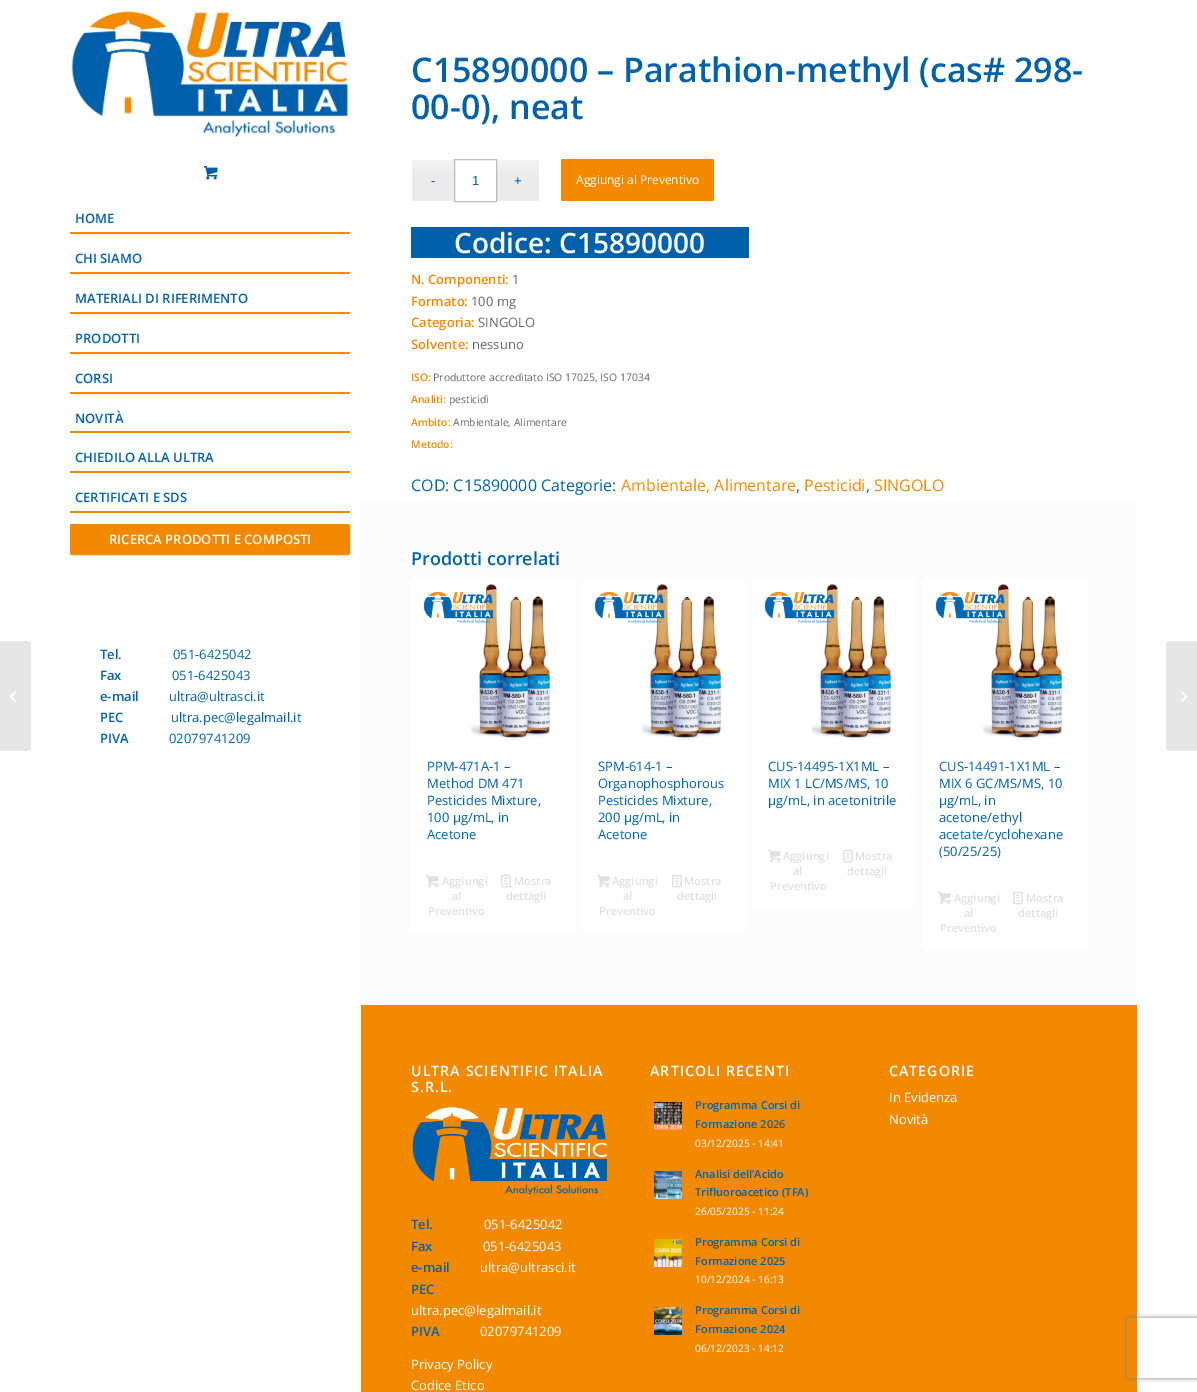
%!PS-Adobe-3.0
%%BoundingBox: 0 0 1197 1392
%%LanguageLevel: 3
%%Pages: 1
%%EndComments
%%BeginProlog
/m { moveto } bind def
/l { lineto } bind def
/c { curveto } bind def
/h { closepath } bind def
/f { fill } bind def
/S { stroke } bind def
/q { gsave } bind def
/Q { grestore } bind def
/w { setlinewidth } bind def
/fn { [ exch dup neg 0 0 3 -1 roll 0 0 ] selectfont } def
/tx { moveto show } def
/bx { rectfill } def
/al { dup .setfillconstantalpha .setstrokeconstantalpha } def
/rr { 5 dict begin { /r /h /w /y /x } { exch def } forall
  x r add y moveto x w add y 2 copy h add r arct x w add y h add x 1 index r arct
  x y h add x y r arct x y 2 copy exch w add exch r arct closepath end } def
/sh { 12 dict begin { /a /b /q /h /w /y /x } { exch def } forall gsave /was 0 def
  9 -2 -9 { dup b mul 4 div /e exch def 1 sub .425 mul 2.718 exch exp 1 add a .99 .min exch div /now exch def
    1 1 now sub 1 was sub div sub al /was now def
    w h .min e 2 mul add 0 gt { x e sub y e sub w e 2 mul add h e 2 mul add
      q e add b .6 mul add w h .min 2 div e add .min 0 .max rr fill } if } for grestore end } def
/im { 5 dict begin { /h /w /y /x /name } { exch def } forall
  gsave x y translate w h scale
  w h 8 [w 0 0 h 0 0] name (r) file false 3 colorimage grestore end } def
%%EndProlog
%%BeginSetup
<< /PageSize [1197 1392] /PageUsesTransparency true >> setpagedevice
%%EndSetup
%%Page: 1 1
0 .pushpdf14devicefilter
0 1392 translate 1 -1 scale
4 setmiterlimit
1 setgray
0 0 1197 1392 bx
0.902 setgray
0 641 m 27 641 l 29 641 31 643 31 645 c 31 747 l 31 749 29 751 27 751 c 0 751 l h f
(image0.raw) 10 691 7 11 im
(image1.raw) 71 11 277 126 im
(image2.raw) 204 166 14 14 im
0.949 0.545 0 setrgbcolor
70 232 280 2 bx
/OpenSans-SemiBold 13 fn
0 0.376 0.667 setrgbcolor
(HOME) 75 223 tx
0.949 0.545 0 setrgbcolor
70 272 280 2 bx
0 0.376 0.667 setrgbcolor
(CHI SIAMO) 75 263 tx
0.949 0.545 0 setrgbcolor
70 312 280 2 bx
0 0.376 0.667 setrgbcolor
(MATERIALI DI RIFERIMENTO) 75 303 tx
0.949 0.545 0 setrgbcolor
70 352 280 2 bx
0 0.376 0.667 setrgbcolor
(PRODOTTI) 75 343 tx
0.949 0.545 0 setrgbcolor
70 392 280 2 bx
0 0.376 0.667 setrgbcolor
(CORSI) 75 383 tx
0.949 0.545 0 setrgbcolor
70 431 280 2 bx
0 0.376 0.667 setrgbcolor
(NOVITÀ) 75 423 tx
0.949 0.545 0 setrgbcolor
70 471 280 2 bx
0 0.376 0.667 setrgbcolor
(CHIEDILO ALLA ULTRA) 75 462 tx
0.949 0.545 0 setrgbcolor
70 511 280 2 bx
0 0.376 0.667 setrgbcolor
(CERTIFICATI E SDS) 75 502 tx
0.949 0.537 0 setrgbcolor
71 525 278 29 1 rr q f Q
2 w
S
1 setgray
(RICERCA PRODOTTI E COMPOSTI) 109 544 tx
0 0.376 0.667 setrgbcolor
(Tel.) 100 659 tx
/OpenSans-Regular 13 fn
(051-6425042) 173 659 tx
/OpenSans-SemiBold 13 fn
(Fax) 100 680 tx
/OpenSans-Regular 13 fn
(051-6425043) 172 680 tx
/OpenSans-SemiBold 13 fn
(e-mail) 100 701 tx
/OpenSans-Regular 13 fn
(ultra@ultrasci.it) 169 701 tx
/OpenSans-SemiBold 13 fn
(PEC) 100 722 tx
/OpenSans-Regular 13 fn
(ultra.pec@legalmail.it) 171 722 tx
/OpenSans-SemiBold 13 fn
(PIVA) 100 743 tx
/OpenSans-Regular 13 fn
(02079741209) 169 743 tx
/OpenSans-SemiBold 34 fn
(C15890000 – Parathion-methyl \(cas# 298-) 411 82 tx
(00-0\), neat) 411 119 tx
0.922 setgray
412 160 42 41 bx
(image3.raw) 412 160 42 10 im
497 160 42 41 bx
(image3.raw) 497 160 42 10 im
/LiberationSans-Regular 13 fn
0 0.376 0.667 setrgbcolor
(-) 431 185 tx
0.733 setgray
1 w
454.5 159.5 42 42 rectstroke
0 0.376 0.667 setrgbcolor
(1) 472 185 tx
(+) 514 185 tx
0.949 0.537 0 setrgbcolor
561 159 153 42 2 rr f
/OpenSans-Regular 12 fn
1 setgray
(Aggiungi al Preventivo) 576 184 tx
0 0.376 0.667 setrgbcolor
411 227 338 31 bx
/OpenSans-SemiBold 28 fn
1 setgray
(Codice: C15890000) 454 253 tx
/OpenSans-SemiBold 13 fn
0.949 0.537 0 setrgbcolor
(N. Componenti:) 411 284 tx
/OpenSans-Regular 13 fn
0.4 setgray
(1) 512 284 tx
/OpenSans-SemiBold 13 fn
0.949 0.537 0 setrgbcolor
(Formato:) 411 306 tx
/OpenSans-Regular 13 fn
0.4 setgray
(100 mg) 471 306 tx
/OpenSans-SemiBold 13 fn
0.949 0.537 0 setrgbcolor
(Categoria:) 411 327 tx
/OpenSans-Regular 13 fn
0.4 setgray
(SINGOLO) 478 327 tx
/OpenSans-SemiBold 13 fn
0.949 0.537 0 setrgbcolor
(Solvente:) 411 349 tx
/OpenSans-Regular 13 fn
0.4 setgray
(nessuno) 472 349 tx
/OpenSans-SemiBold 10.4 fn
0.949 0.537 0 setrgbcolor
(ISO:) 411 381 tx
/OpenSans-Regular 10.4 fn
0.4 setgray
(Produttore accreditato ISO 17025, ISO 17034) 433 381 tx
/OpenSans-SemiBold 10.4 fn
0.949 0.537 0 setrgbcolor
(Analiti:) 411 403 tx
/OpenSans-Regular 10.4 fn
0.4 setgray
(pesticidi) 449 403 tx
/OpenSans-SemiBold 10.4 fn
0.949 0.537 0 setrgbcolor
(Ambito:) 411 426 tx
/OpenSans-Regular 10.4 fn
0.4 setgray
(Ambientale, Alimentare) 453 426 tx
/OpenSans-SemiBold 10.4 fn
0.949 0.537 0 setrgbcolor
(Metodo:) 411 448 tx
/OpenSans-Regular 16 fn
0 0.376 0.667 setrgbcolor
(COD: C15890000 Categorie:) 411 491 tx
0.949 0.537 0 setrgbcolor
(Ambientale, Alimentare) 621 491 tx
0 0.376 0.667 setrgbcolor
(,) 796 491 tx
0.949 0.537 0 setrgbcolor
(Pesticidi) 804 491 tx
0 0.376 0.667 setrgbcolor
(,) 866 491 tx
0.949 0.537 0 setrgbcolor
(SINGOLO) 874 491 tx
0.988 setgray
361 499 776 506 bx
/OpenSans-SemiBold 18 fn
0 0.376 0.667 setrgbcolor
(Prodotti correlati) 411 565 tx
1 setgray
411 579 164 353 3 rr f
(image4.raw) 423 584 128 156 im
492 736 m 499 743 l 492 750 l 485 743 l h f
/OpenSans-Regular 13 fn
0 0.376 0.667 setrgbcolor
(PPM-471A-1 –) 427 771 tx
(Method DM 471) 427 788 tx
(Pesticides Mixture,) 427 805 tx
(100 µg/mL, in) 427 822 tx
(Acetone) 427 839 tx
(image5.raw) 426 874 13 14 im
/OpenSans-SemiBold 11 fn
0.878 setgray
(Aggiungi) 442 885 tx
(al) 452 900 tx
(Preventivo) 428 915 tx
(image6.raw) 501 874 10 14 im
(Mostra) 514 885 tx
(dettagli) 506 900 tx
1 setgray
582 579 164 353 3 rr f
(image7.raw) 594 584 128 156 im
662.5 736 m 669.5 743 l 662.5 750 l 655.5 743 l h f
/OpenSans-Regular 13 fn
0 0.376 0.667 setrgbcolor
(SPM-614-1 –) 598 771 tx
(Organophosphorous) 598 788 tx
(Pesticides Mixture,) 598 805 tx
(200 µg/mL, in) 598 822 tx
(Acetone) 598 839 tx
(image5.raw) 597 874 13 14 im
/OpenSans-SemiBold 11 fn
0.878 setgray
(Aggiungi) 612 885 tx
(al) 623 900 tx
(Preventivo) 599 915 tx
(image6.raw) 672 874 10 14 im
(Mostra) 684 885 tx
(dettagli) 677 900 tx
1 setgray
752 579 164 328 3 rr f
(image8.raw) 764 584 128 156 im
833.5 736 m 840.5 743 l 833.5 750 l 826.5 743 l h f
/OpenSans-Regular 13 fn
0 0.376 0.667 setrgbcolor
(CUS-14495-1X1ML –) 768 771 tx
(MIX 1 LC/MS/MS, 10) 768 788 tx
(μg/mL, in acetonitrile) 768 805 tx
(image5.raw) 768 849 13 14 im
/OpenSans-SemiBold 11 fn
0.878 setgray
(Aggiungi) 783 860 tx
(al) 793 875 tx
(Preventivo) 770 890 tx
(image6.raw) 843 849 10 14 im
(Mostra) 855 860 tx
(dettagli) 847 875 tx
1 setgray
923 579 164 370 3 rr f
(image9.raw) 935 584 128 156 im
1004 736 m 1011 743 l 1004 750 l 997 743 l h f
/OpenSans-Regular 13 fn
0 0.376 0.667 setrgbcolor
(CUS-14491-1X1ML –) 939 771 tx
(MIX 6 GC/MS/MS, 10) 939 788 tx
(μg/mL, in) 939 805 tx
(acetone/ethyl) 939 822 tx
(acetate/cyclohexane) 939 839 tx
(\(50/25/25\)) 939 856 tx
(image5.raw) 938 891 13 14 im
/OpenSans-SemiBold 11 fn
0.878 setgray
(Aggiungi) 954 902 tx
(al) 964 917 tx
(Preventivo) 940 932 tx
(image6.raw) 1013 891 10 14 im
(Mostra) 1026 902 tx
(dettagli) 1018 917 tx
0.949 0.537 0 setrgbcolor
361 1005 776 387 bx
/OpenSans-SemiBold 14.25 fn
1 setgray
411 1076 m 1 0 (ULTRA SCIENTIFIC ITALIA) ashow
411 1092 m 1 0 (S.R.L.) ashow
(image10.raw) 412 1107 195 89 im
/OpenSans-SemiBold 13 fn
0 0.376 0.667 setrgbcolor
(Tel.) 411 1229 tx
/OpenSans-Regular 13 fn
1 setgray
(051-6425042) 484 1229 tx
/OpenSans-SemiBold 13 fn
0 0.376 0.667 setrgbcolor
(Fax) 411 1251 tx
/OpenSans-Regular 13 fn
1 setgray
(051-6425043) 483 1251 tx
/OpenSans-SemiBold 13 fn
0 0.376 0.667 setrgbcolor
(e-mail) 411 1272 tx
/OpenSans-Regular 13 fn
1 setgray
(ultra@ultrasci.it) 480 1272 tx
/OpenSans-SemiBold 13 fn
0 0.376 0.667 setrgbcolor
(PEC) 411 1294 tx
/OpenSans-Regular 13 fn
1 setgray
(ultra.pec@legalmail.it) 411 1315 tx
/OpenSans-SemiBold 13 fn
0 0.376 0.667 setrgbcolor
(PIVA) 411 1336 tx
/OpenSans-Regular 13 fn
1 setgray
(02079741209) 480 1336 tx
(Privacy Policy) 411 1369 tx
(Codice Etico) 411 1390 tx
/OpenSans-SemiBold 14.25 fn
650 1076 m 1 0 (ARTICOLI RECENTI) ashow
(image11.raw) 654 1102 28 28 im
/OpenSans-SemiBold 11 fn
0 0.376 0.667 setrgbcolor
(Programma Corsi di) 695 1109 tx
(Formazione 2026) 695 1128 tx
/OpenSans-Regular 10.25 fn
1 setgray
(03/12/2025 - 14:41) 695 1147 tx
(image12.raw) 654 1171 28 28 im
/OpenSans-SemiBold 11 fn
0 0.376 0.667 setrgbcolor
(Analisi dell’Acido) 695 1178 tx
(Trifluoroacetico \(TFA\)) 695 1196 tx
/OpenSans-Regular 10.25 fn
1 setgray
(26/05/2025 - 11:24) 695 1215 tx
(image13.raw) 654 1239 28 28 im
/OpenSans-SemiBold 11 fn
0 0.376 0.667 setrgbcolor
(Programma Corsi di) 695 1246 tx
(Formazione 2025) 695 1265 tx
/OpenSans-Regular 10.25 fn
1 setgray
(10/12/2024 - 16:13) 695 1283 tx
(image14.raw) 654 1307 28 28 im
/OpenSans-SemiBold 11 fn
0 0.376 0.667 setrgbcolor
(Programma Corsi di) 695 1314 tx
(Formazione 2024) 695 1333 tx
/OpenSans-Regular 10.25 fn
1 setgray
(06/12/2023 - 14:12) 695 1352 tx
/OpenSans-SemiBold 14.25 fn
889 1076 m 1 0 (CATEGORIE) ashow
/OpenSans-Regular 13 fn
(In Evidenza) 889 1102 tx
(Novità) 889 1124 tx
0.902 setgray
1170 641 m 1197 641 l 1197 751 l 1170 751 l 1168 751 1166 749 1166 747 c 1166 645 l 1166 643 1168 641 1170 641 c h f
(image15.raw) 1181 691 7 11 im
q
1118 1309 m 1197 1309 l 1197 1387 l 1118 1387 l h 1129 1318 m 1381 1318 l 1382 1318 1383 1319 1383 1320 c 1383 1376 l 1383 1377 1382 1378 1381 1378 c 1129 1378 l 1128 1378 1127 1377 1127 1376 c 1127 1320 l 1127 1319 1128 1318 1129 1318 c h eoclip newpath
0.502 setgray
1127 1318 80 60 2 2.5 1 sh
Q
.poppdf14devicefilter showpage
%%EOF
